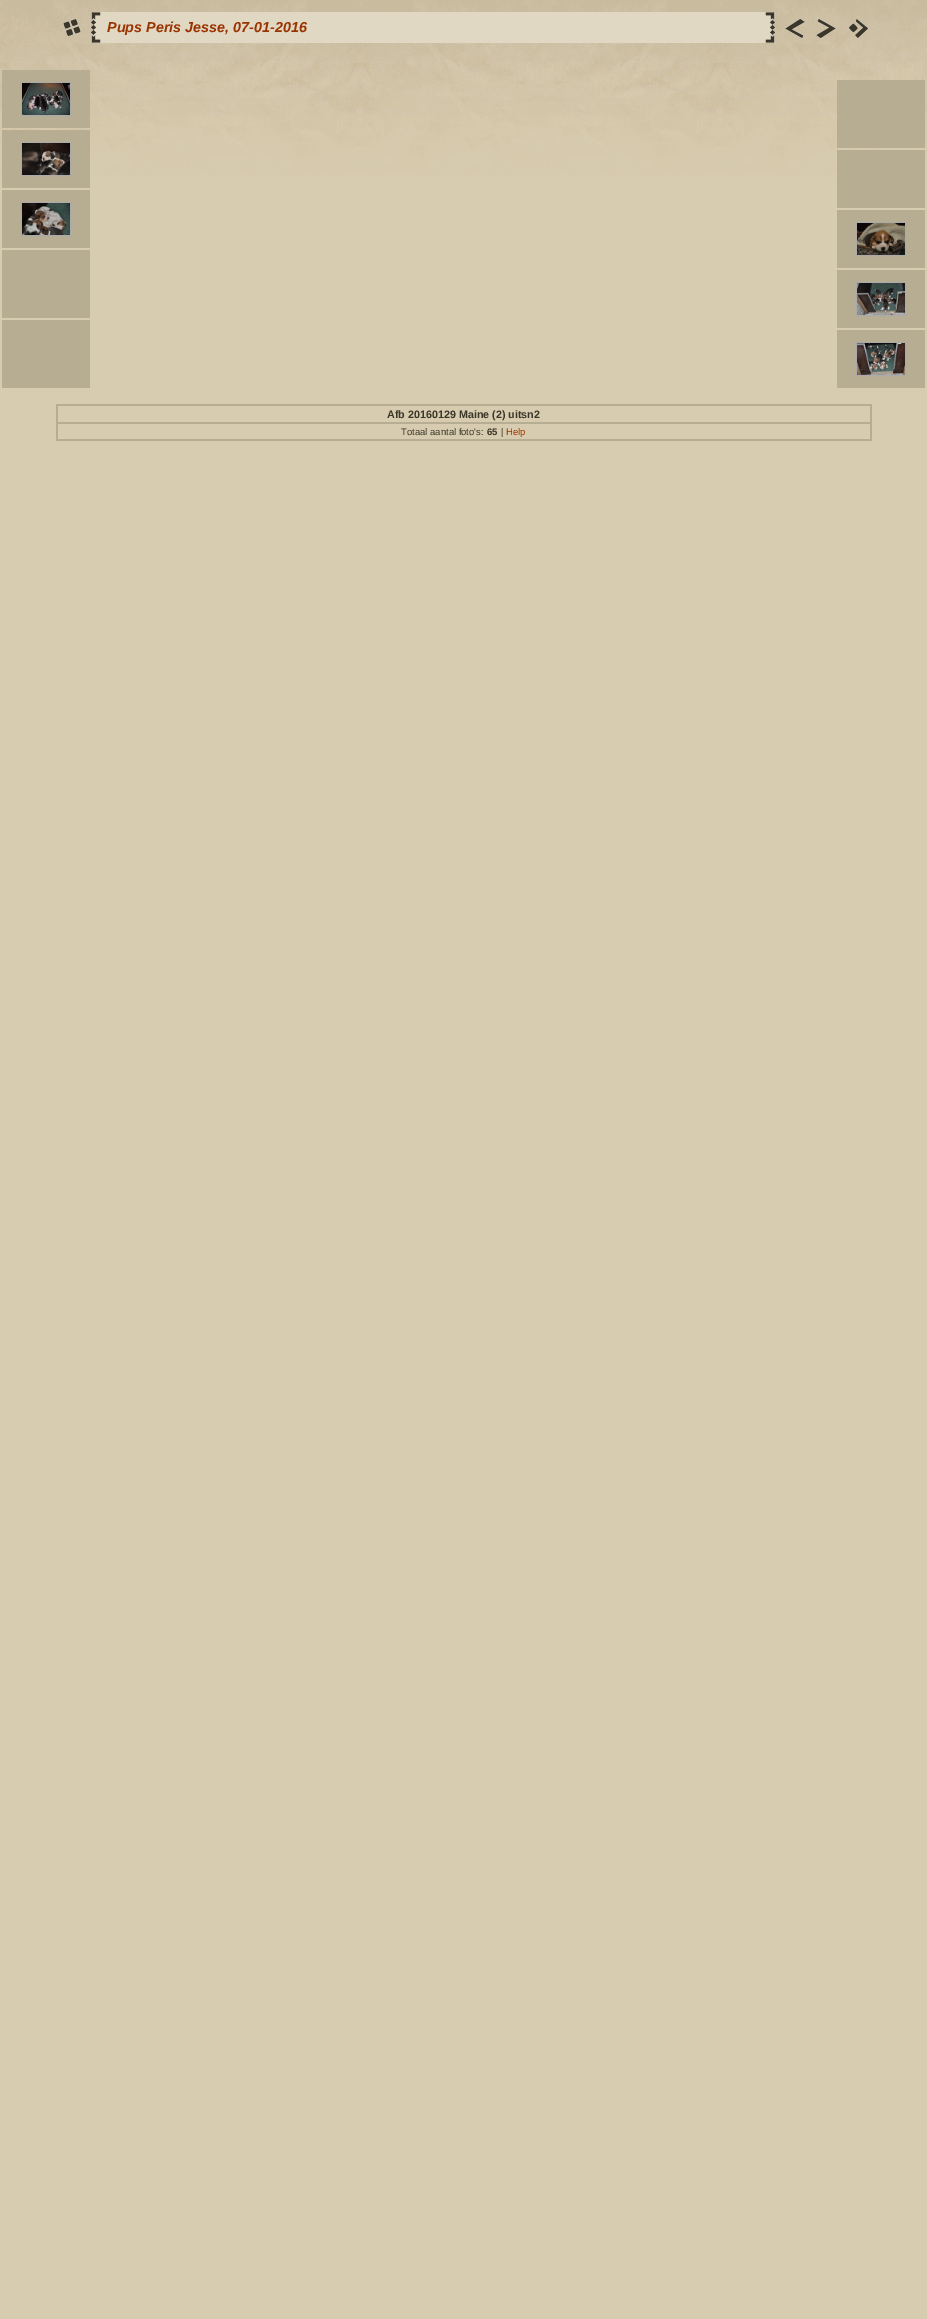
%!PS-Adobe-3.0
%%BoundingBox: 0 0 927 2319
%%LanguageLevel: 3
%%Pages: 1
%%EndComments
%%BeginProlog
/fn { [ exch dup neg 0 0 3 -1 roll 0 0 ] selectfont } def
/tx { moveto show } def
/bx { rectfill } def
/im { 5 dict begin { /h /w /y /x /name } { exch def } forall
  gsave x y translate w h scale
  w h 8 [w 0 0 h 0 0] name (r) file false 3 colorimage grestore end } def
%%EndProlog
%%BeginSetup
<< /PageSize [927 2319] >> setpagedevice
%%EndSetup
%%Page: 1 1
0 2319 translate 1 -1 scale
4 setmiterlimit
0.843 0.8 0.69 setrgbcolor
0 0 927 2319 bx
(image0.raw) 0 0 927 177 im
(image1.raw) 63 19 18 17 im
(image2.raw) 90 12 17 31 im
0.882 0.847 0.769 setrgbcolor
107 12 652 31 bx
/LiberationSans-BoldItalic 14.4 fn
0.6 0.2 0 setrgbcolor
(Pups Peris Jesse, 07-01-2016) 107 32 tx
(image3.raw) 759 12 17 31 im
(image4.raw) 785 18 20 21 im
(image5.raw) 816 18 20 21 im
(image6.raw) 848 19 21 20 im
0.718 0.678 0.573 setrgbcolor
2 70 88 58 bx
0.667 setgray
21.5 82.5 49 33 rectstroke
(image7.raw) 22 83 48 32 im
0.718 0.678 0.573 setrgbcolor
2 130 88 58 bx
0.667 setgray
21.5 142.5 49 33 rectstroke
(image8.raw) 22 143 48 32 im
0.718 0.678 0.573 setrgbcolor
2 190 88 58 bx
0.667 setgray
21.5 202.5 49 33 rectstroke
(image9.raw) 22 203 48 32 im
0.718 0.678 0.573 setrgbcolor
2 250 88 68 bx
2 320 88 68 bx
837 80 88 68 bx
837 150 88 58 bx
837 210 88 58 bx
0.667 setgray
856.5 222.5 49 33 rectstroke
(image10.raw) 857 223 48 32 im
0.718 0.678 0.573 setrgbcolor
837 270 88 58 bx
0.667 setgray
856.5 282.5 49 33 rectstroke
(image11.raw) 857 283 48 32 im
0.718 0.678 0.573 setrgbcolor
837 330 88 58 bx
0.667 setgray
856.5 342.5 49 33 rectstroke
(image12.raw) 857 343 48 32 im
0.718 0.678 0.573 setrgbcolor
56 404 816 2 bx
870 404 2 37 bx
56 439 816 2 bx
56 404 2 37 bx
/LiberationSans-Bold 10.75 fn
0.231 0.212 0.165 setrgbcolor
(Afb 20160129 Maine \(2\) uitsn2) 387 418 tx
0.718 0.678 0.573 setrgbcolor
56 422 816 2 bx
/LiberationSans-Regular 9.5 fn
0.231 0.212 0.165 setrgbcolor
(Totaal aantal foto's:) 401 435 tx
/LiberationSans-Bold 9.5 fn
(65) 487 435 tx
/LiberationSans-Regular 9.5 fn
(|) 501 435 tx
0.6 0.2 0 setrgbcolor
(Help) 506 435 tx
showpage
%%EOF
